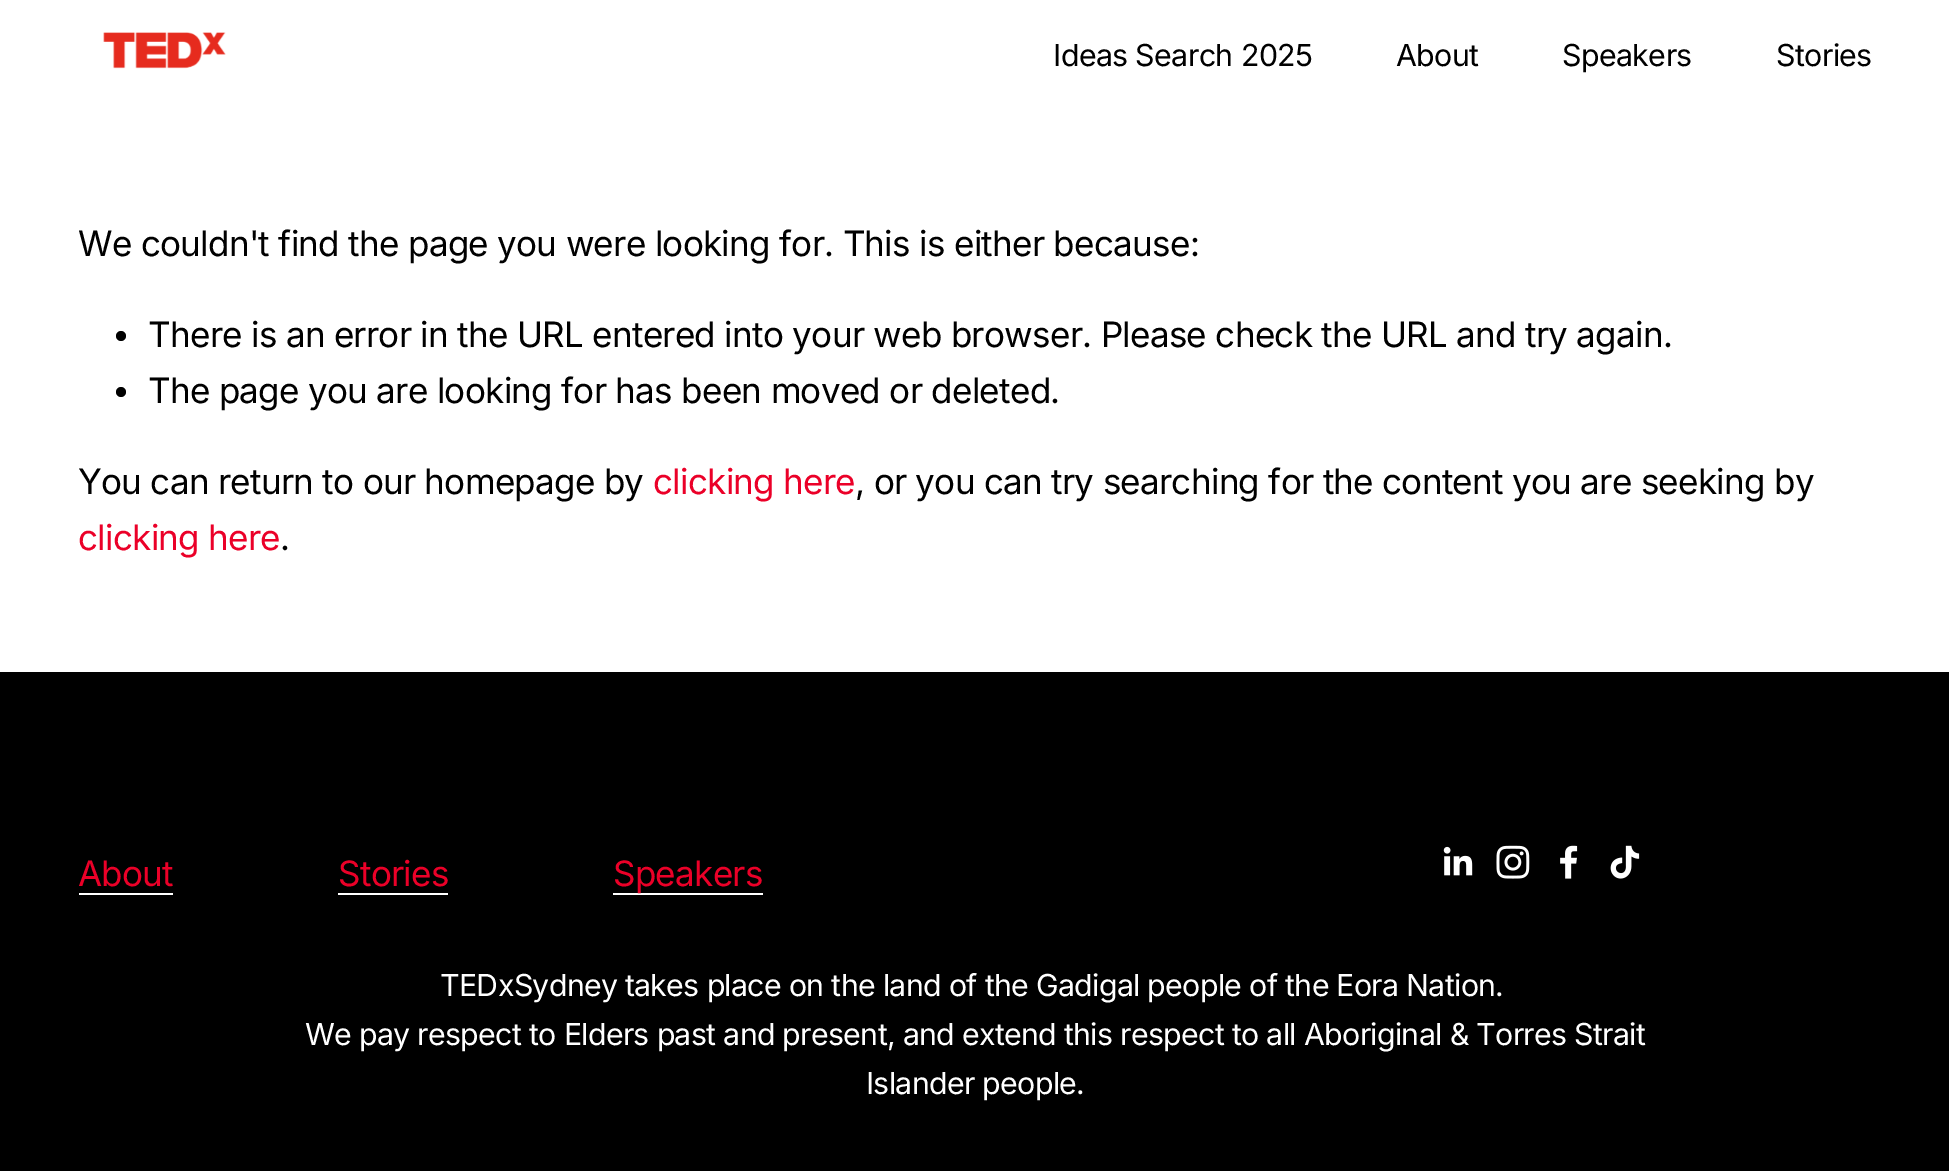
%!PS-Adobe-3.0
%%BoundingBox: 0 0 1949 1171
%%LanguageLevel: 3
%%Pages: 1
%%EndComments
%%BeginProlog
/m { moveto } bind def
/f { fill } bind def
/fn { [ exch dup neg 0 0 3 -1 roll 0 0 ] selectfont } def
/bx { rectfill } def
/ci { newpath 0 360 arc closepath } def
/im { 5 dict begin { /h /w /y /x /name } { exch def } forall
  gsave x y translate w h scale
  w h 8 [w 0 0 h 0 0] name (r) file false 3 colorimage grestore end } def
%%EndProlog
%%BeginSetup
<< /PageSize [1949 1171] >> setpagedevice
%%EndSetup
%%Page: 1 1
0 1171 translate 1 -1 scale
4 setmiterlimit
1 setgray
0 0 1949 1171 bx
(image0.raw) 103 32 123 37 im
/Inter-Regular 30.35 fn
0 setgray
1053 66 m -0.6 0 (Ideas Search 2025) ashow
1396 66 m -0.6 0 (About) ashow
1562 66 m -0.6 0 (Speakers) ashow
1776 66 m -0.6 0 (Stories) ashow
/Inter-Regular 35 fn
78 256 m -0.7 0 (We couldn't find the page you were looking for. This is either because:) ashow
121 336 5 ci f
148 347 m -0.7 0 (There is an error in the URL entered into your web browser. Please check the URL and try again.) ashow
121 392 5 ci f
148 403 m -0.7 0 (The page you are looking for has been moved or deleted.) ashow
78 494 m -0.7 0 (You can return to our homepage by) ashow
0.922 0 0.157 setrgbcolor
653 494 m -0.7 0 (clicking here) ashow
0 setgray
855 494 m -0.7 0 (, or you can try searching for the) ashow
1382 494 m -0.7 0 (content you are seeking by) ashow
0.922 0 0.157 setrgbcolor
78 550 m -0.7 0 (clicking here) ashow
0 setgray
280 550 m -0.7 0 (.) ashow
0 672 1949 499 bx
0.922 0 0.157 setrgbcolor
78 886 m -0.7 0 (About) ashow
1 setgray
79 893 94 2 bx
0.922 0 0.157 setrgbcolor
338 886 m -0.7 0 (Stories) ashow
1 setgray
338 893 110 2 bx
613 893 150 2 bx
0.922 0 0.157 setrgbcolor
613 886 m -0.7 0 (Speakers) ashow
(image1.raw) 1443 846 30 30 im
(image2.raw) 1496 845 34 34 im
(image3.raw) 1560 845 18 34 im
(image4.raw) 1610 845 30 34 im
/Inter-Regular 30.35 fn
1 setgray
440 996 m -0.7 0 (TEDxSydney takes place on the land of the Gadigal people of the Eora Nation.) ashow
305 1045 m -0.7 0 (We pay respect to Elders past and present, and extend this respect to all Aboriginal & Torres Strait) ashow
866 1094 m -0.7 0 (Islander people.) ashow
showpage
%%EOF
